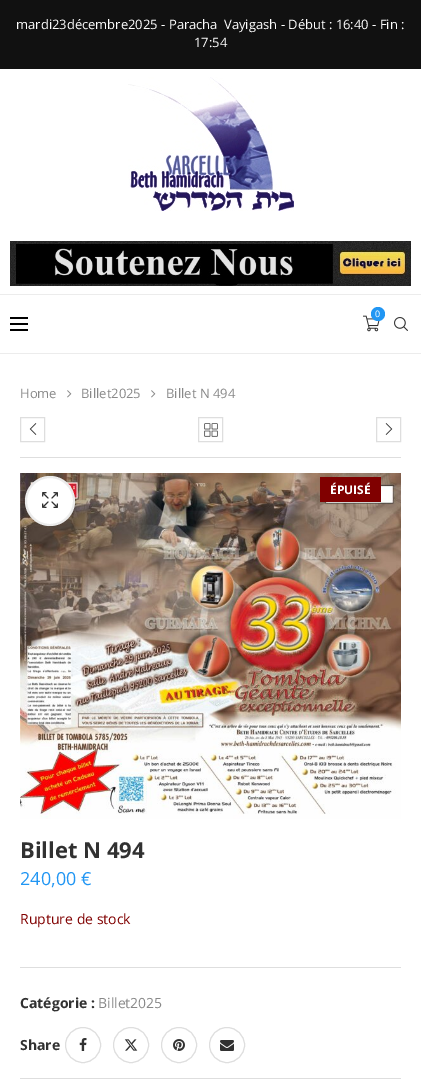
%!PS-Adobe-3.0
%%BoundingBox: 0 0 421 1087
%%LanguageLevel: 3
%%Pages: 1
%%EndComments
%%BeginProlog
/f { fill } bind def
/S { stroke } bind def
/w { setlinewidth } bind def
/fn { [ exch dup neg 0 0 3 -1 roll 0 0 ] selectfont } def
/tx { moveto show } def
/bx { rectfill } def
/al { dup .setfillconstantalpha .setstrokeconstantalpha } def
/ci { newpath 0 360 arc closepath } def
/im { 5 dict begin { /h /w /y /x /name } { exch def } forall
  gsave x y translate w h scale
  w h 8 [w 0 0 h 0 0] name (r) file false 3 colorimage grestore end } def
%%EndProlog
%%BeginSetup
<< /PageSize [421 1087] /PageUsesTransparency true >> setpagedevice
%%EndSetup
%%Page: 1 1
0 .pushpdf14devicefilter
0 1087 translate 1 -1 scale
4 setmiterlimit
1 setgray
0 0 421 1087 bx
0.067 setgray
0 0 421 69 bx
/OpenSans-Regular 13 fn
1 setgray
(mardi23décembre2025 - Paracha) 16 29 tx
(Vayigash - Début : 16:40 - Fin :) 224 29 tx
(17:54) 194 47 tx
(image0.raw) 128 77 166 134 im
(image1.raw) 10 241 401 45 im
0.925 setgray
0 294 421 1 bx
0 353 421 1 bx
(image2.raw) 363 315 17 17 im
0.129 0.588 0.953 setrgbcolor
378 314 7 ci f
/OpenSans-Regular 9 fn
1 setgray
(0) 375 317 tx
0 setgray
10 317 18 2 bx
10 323 18 2 bx
10 329 18 2 bx
(image3.raw) 394 317 14 14 im
/OpenSans-Regular 13 fn
0.533 setgray
(Home) 20 398 tx
(image4.raw) 67 390 5 8 im
(Billet2025) 81 398 tx
(image4.raw) 151 390 5 8 im
(Billet N 494) 166 398 tx
0.871 setgray
20 1078 381 1 bx
20 457 381 1 bx
20.5 417.5 24 24 rectstroke
(image5.raw) 29 423 8 12 im
198.5 417.5 24 24 rectstroke
(image6.raw) 204 423 14 14 im
376.5 417.5 24 24 rectstroke
(image7.raw) 385 423 8 12 im
(image8.raw) 20 473 381 346 im
1 setgray
50 501 25 ci f
0.1 al
0.216 setgray
2 w
50 501 24 ci S
1 al
(image9.raw) 42 492 16 16 im
0.502 0 0 setrgbcolor
320 477 61 25 bx
/OpenSans-Bold 12 fn
1 setgray
(ÉPUISÉ) 330 494 tx
/OpenSans-Bold 22 fn
0.192 setgray
(Billet N 494) 20 858 tx
/OpenSans-Regular 18 fn
0.129 0.588 0.953 setrgbcolor
(240,00 €) 20 885 tx
/OpenSans-Regular 14 fn
0.502 0 0 setrgbcolor
(Rupture de stock) 20 924 tx
0.871 setgray
20 967 381 1 bx
/OpenSans-Bold 14 fn
0.192 setgray
(Catégorie :) 20 1008 tx
/OpenSans-Regular 14 fn
0.533 setgray
(Billet2025) 98 1008 tx
/OpenSans-Bold 14 fn
0.192 setgray
(Share) 20 1050 tx
0.871 setgray
1 w
83 1045 17.5 ci S
(image10.raw) 79 1038 8 13 im
131 1045 17.5 ci S
(image11.raw) 124 1039 14 12 im
179 1045 17.5 ci S
(image12.raw) 173 1039 12 12 im
227 1045 17.5 ci S
(image13.raw) 220 1040 14 11 im
.poppdf14devicefilter showpage
%%EOF
